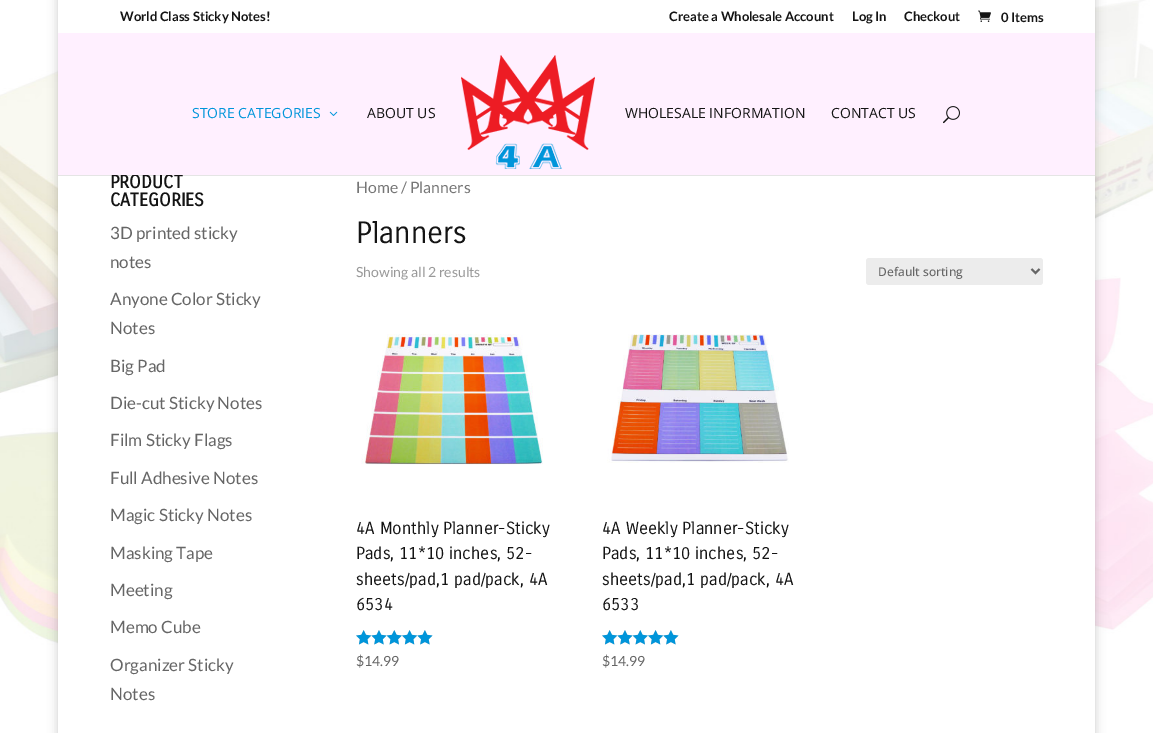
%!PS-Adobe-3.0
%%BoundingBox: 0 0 1153 733
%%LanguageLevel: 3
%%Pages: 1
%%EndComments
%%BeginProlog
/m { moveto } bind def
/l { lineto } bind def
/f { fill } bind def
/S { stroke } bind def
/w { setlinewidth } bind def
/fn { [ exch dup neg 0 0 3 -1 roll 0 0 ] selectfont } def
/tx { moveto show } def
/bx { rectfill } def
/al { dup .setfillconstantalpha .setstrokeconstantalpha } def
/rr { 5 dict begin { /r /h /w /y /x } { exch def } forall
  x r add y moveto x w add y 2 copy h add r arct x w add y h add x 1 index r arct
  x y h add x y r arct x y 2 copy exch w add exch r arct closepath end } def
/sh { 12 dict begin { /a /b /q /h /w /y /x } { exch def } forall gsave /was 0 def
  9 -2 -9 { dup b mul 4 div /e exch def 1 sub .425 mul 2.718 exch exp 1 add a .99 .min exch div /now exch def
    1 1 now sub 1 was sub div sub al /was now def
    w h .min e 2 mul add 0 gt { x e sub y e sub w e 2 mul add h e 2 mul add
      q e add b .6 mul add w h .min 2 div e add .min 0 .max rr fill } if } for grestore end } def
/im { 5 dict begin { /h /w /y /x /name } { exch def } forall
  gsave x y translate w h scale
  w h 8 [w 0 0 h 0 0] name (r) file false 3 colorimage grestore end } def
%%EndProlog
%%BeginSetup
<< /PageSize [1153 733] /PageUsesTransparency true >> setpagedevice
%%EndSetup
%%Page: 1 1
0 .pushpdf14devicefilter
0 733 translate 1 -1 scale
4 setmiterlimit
1 setgray
0 0 1153 733 bx
(image0.raw) 0 0 1153 646 im
0 setgray
58 -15 1037 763 0 5 0.2 sh
1 setgray
58 0 1037 33 bx
/Lato-Bold 13 fn
0.078 setgray
(World Class Sticky Notes!) 120 21 tx
(Create a Wholesale Account) 669 21 tx
(Log In) 852 21 tx
(Checkout) 904 21 tx
(image1.raw) 978 10 13 12 im
(0 Items) 1001 22 tx
1 setgray
58 175 1037 558 bx
0.1 al
0 setgray
58 175 1037 1 bx
/CarroisGothic-Bold 18 fn
1 al
0.078 setgray
(PRODUCT) 110 188 tx
1 0.941 1 setrgbcolor
58 33 1037 142 bx
/OpenSans-Regular 14 fn
0 0.584 0.855 setrgbcolor
(STORE CATEGORIES) 192 118 tx
(image2.raw) 329 111 9 5 im
0.078 setgray
(ABOUT US) 367 118 tx
(image3.raw) 461 55 134 114 im
(WHOLESALE INFORMATION) 625 118 tx
(CONTACT US) 831 118 tx
(image4.raw) 943 106 17 18 im
/CarroisGothic-Bold 18 fn
(CATEGORIES) 110 206 tx
/Lato-Regular 17 fn
0.4 setgray
(3D printed sticky) 110 239 tx
(notes) 110 268 tx
(Anyone Color Sticky) 110 305 tx
(Notes) 110 334 tx
(Big Pad) 110 372 tx
(Die-cut Sticky Notes) 110 409 tx
(Film Sticky Flags) 110 446 tx
(Full Adhesive Notes) 110 484 tx
(Magic Sticky Notes) 110 521 tx
(Masking Tape) 110 559 tx
(Meeting) 110 596 tx
(Memo Cube) 110 633 tx
(Organizer Sticky) 110 671 tx
(Notes) 110 700 tx
/Lato-Regular 15.75 fn
0.463 setgray
(Home / Planners) 356 193 tx
/CarroisGothic-Regular 30 fn
0.078 setgray
(Planners) 356 243 tx
/Lato-Regular 14 fn
0.6 setgray
(Showing all 2 results) 356 277 tx
0.925 setgray
866 258 177 27 3 rr f
0.4 setgray
2 w
1031.5 269 m 1035.5 273 l 1039.5 269 l S
/OpenSans-Medium 12 fn
(Default sorting) 878 276 tx
(image5.raw) 361 334 182 131 im
/CarroisGothic-Regular 17 fn
0.078 setgray
(4A Monthly Planner-Sticky) 356 534 tx
(Pads, 11*10 inches, 52-) 356 559 tx
(sheets/pad,1 pad/pack, 4A) 356 585 tx
(6534) 356 610 tx
(image6.raw) 356 630 77 15 im
(image7.raw) 356 630 77 15 im
/Lato-Regular 14 fn
0.4 setgray
($14.99) 356 666 tx
(image8.raw) 607 334 182 129 im
/CarroisGothic-Regular 17 fn
0.078 setgray
(4A Weekly Planner-Sticky) 602 534 tx
(Pads, 11*10 inches, 52-) 602 559 tx
(sheets/pad,1 pad/pack, 4A) 602 585 tx
(6533) 602 610 tx
(image6.raw) 602 630 77 15 im
(image7.raw) 602 630 77 15 im
/Lato-Regular 14 fn
0.4 setgray
($14.99) 602 666 tx
.poppdf14devicefilter showpage
%%EOF
